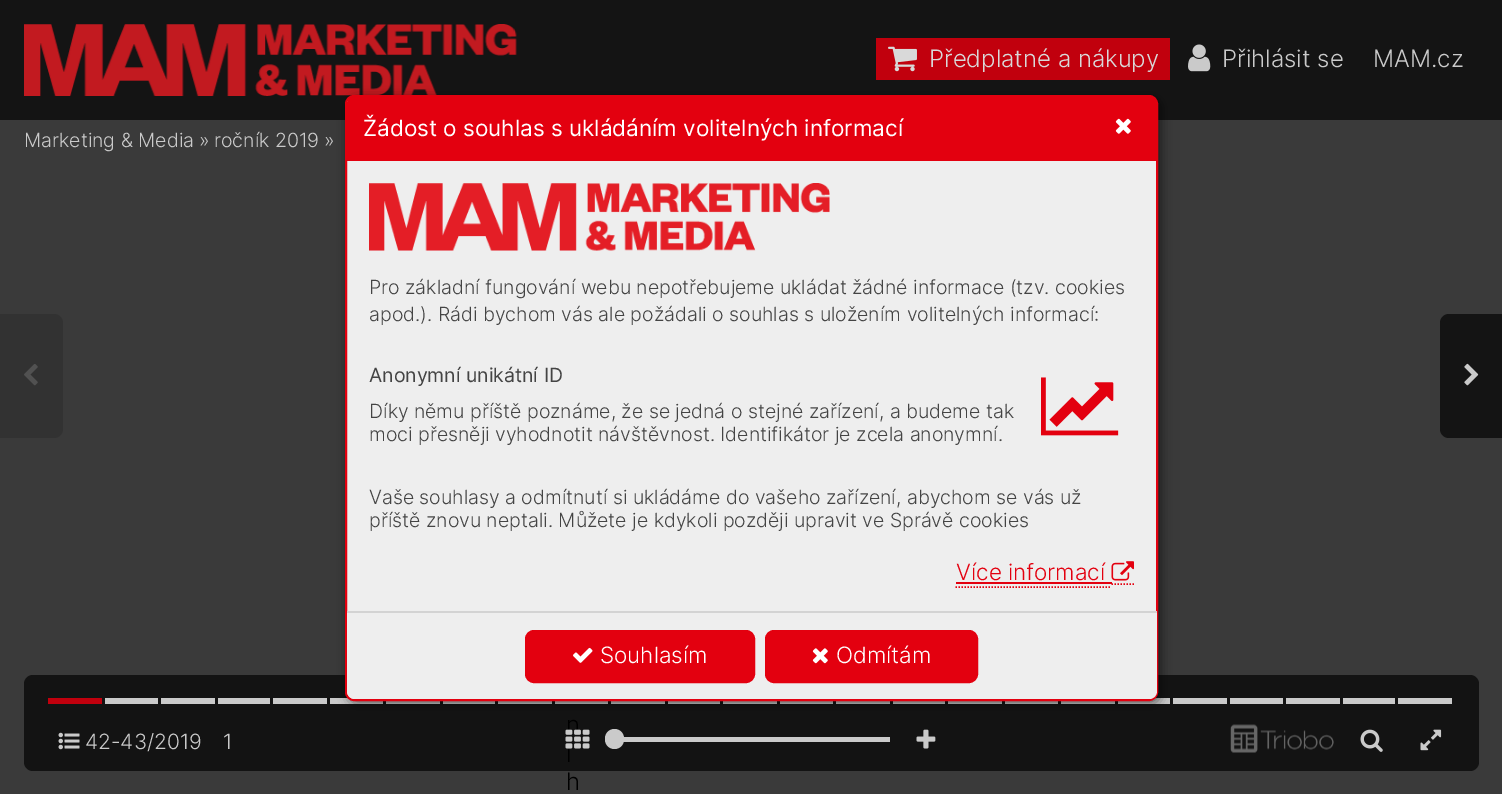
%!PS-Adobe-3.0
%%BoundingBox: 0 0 1502 794
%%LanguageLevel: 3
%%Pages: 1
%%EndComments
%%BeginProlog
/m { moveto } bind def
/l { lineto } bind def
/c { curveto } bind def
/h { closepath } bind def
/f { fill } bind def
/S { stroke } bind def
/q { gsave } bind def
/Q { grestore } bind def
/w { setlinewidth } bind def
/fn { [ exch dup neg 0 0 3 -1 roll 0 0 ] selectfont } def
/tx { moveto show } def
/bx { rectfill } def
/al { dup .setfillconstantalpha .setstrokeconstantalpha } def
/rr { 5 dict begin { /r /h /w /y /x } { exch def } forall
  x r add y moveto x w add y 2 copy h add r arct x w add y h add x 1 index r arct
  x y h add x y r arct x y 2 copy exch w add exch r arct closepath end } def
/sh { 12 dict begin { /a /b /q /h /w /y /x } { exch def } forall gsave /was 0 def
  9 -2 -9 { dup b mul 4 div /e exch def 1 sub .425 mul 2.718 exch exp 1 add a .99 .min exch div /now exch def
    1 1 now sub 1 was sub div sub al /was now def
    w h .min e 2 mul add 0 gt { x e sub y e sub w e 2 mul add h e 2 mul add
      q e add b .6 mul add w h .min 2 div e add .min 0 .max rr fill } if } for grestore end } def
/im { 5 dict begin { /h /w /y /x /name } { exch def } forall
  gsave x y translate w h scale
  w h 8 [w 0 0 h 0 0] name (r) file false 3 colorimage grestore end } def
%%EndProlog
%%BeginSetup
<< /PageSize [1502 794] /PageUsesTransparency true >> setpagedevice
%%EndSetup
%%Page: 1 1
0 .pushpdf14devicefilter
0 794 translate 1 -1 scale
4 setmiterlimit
0.227 setgray
0 0 1502 794 bx
0.078 setgray
0 0 1502 120 bx
(image0.raw) 24 24 493 72 im
0.757 0 0.051 setrgbcolor
876 38 294 42 bx
(image1.raw) 888 46 29 26 im
/Inter-Light 24 fn
0.851 setgray
(Předplatné a nákupy) 929 67 tx
(image2.raw) 1188 44 23 28 im
0.792 setgray
(Přihlásit se) 1222 67 tx
(MAM.cz) 1373 67 tx
/Inter-Light 19.5 fn
(Marketing & Media) 24 147 tx
(») 199 147 tx
(ročník 2019) 214 147 tx
(») 324 147 tx
0.196 setgray
0 314 m 54 314 l 59 314 63 318 63 323 c 63 429 l 63 434 59 438 54 438 c 0 438 l h f
(image3.raw) 24 364 14 22 im
0.078 setgray
1449 314 m 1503 314 l 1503 438 l 1449 438 l 1444 438 1440 434 1440 429 c 1440 323 l 1440 318 1444 314 1449 314 c h f
(image4.raw) 1464 363 15 23 im
/Inter-Light 24 fn
0 setgray
(n) 566 733 tx
(i) 566 762 tx
0.67 al
24 675 1455 96 9 rr f
1 al
0.757 0 0.051 setrgbcolor
48 698 54 6 bx
0.792 setgray
105 698 53 6 bx
161 698 54 6 bx
218 698 52 6 bx
273 698 54 6 bx
330 698 53 6 bx
386 701 54 3 bx
443 701 52 3 bx
498 701 54 3 bx
555 701 53 3 bx
611 701 54 3 bx
668 701 52 3 bx
723 701 54 3 bx
780 701 53 3 bx
836 701 54 3 bx
893 701 52 3 bx
948 701 54 3 bx
1005 701 53 3 bx
1061 701 54 3 bx
1118 698 52 6 bx
1173 698 54 6 bx
1230 698 53 6 bx
1286 698 54 6 bx
1343 698 52 6 bx
1398 698 54 6 bx
(image5.raw) 58 732 22 18 im
/Inter-Light 21 fn
(42-43/2019) 85 749 tx
(1) 223 749 tx
(image6.raw) 565 729 25 20 im
623 737 267 5 bx
605 729 19 20 9.5 rr f
(image7.raw) 916 729 20 20 im
(image8.raw) 1230 724 104 29 im
(image9.raw) 1360 729 23 23 im
(image10.raw) 1420 729 22 22 im
/Inter-Light 24 fn
0 setgray
(h) 566 790 tx
348 98 813 606 9 5.5 0.53 sh
0.933 setgray
346 96 811 604 8 rr q f Q
0.89 0 0.059 setrgbcolor
2 w
S
355 96 m 1149 96 l 1153.5 96 1157 99.5 1157 104 c 1157 161 l 347 161 l 347 104 l 347 99.5 350.5 96 355 96 c h f
/Inter-Regular 22.5 fn
1 setgray
(Žádost o souhlas s ukládáním volitelných informací) 363 136 tx
(image11.raw) 1115 118 16 16 im
(image12.raw) 369 183 461 68 im
/Inter-Light 19.5 fn
0.267 setgray
(Pro základní fungování webu nepotřebujeme ukládat žádné informace \(tzv. cookies) 369 294 tx
(apod.\). Rádi bychom vás ale požádali o souhlas s uložením volitelných informací:) 369 321 tx
/Inter-Regular 19.5 fn
(Anonymní unikátní ID) 369 382 tx
(image13.raw) 1041 377 78 59 im
/Inter-Light 19.5 fn
(Díky němu příště poznáme, že se jedná o stejné zařízení, a budeme tak) 369 418 tx
(moci přesněji vyhodnotit návštěvnost. Identifikátor je zcela anonymní.) 369 441 tx
(Vaše souhlasy a odmítnutí si ukládáme do vašeho zařízení, abychom se vás už) 369 504 tx
(příště znovu neptali. Můžete je kdykoli později upravit ve Správě cookies) 369 527 tx
0.89 0 0.059 setrgbcolor
1.5 w
[1.5 1.5] 0 setdash
955.5 587 m 1111.5 587 l S
1111.5 584 m 1134 584 l S
/Inter-Light 22.5 fn
(Více informací) 956 580 tx
956 582 156 2 bx
(image14.raw) 1111 561 23 20 im
0.933 setgray
347 611 m 1157 611 l 1157 691 l 1157 695.5 1153.5 699 1149 699 c 355 699 l 350.5 699 347 695.5 347 691 c h f
0.827 setgray
347 611 810 2 bx
0.89 0 0.059 setrgbcolor
526 631 228 51 8 rr q f Q
2 w
[] 0 setdash
S
(image15.raw) 573 647 20 16 im
1 setgray
(Souhlasím) 600 663 tx
0.89 0 0.059 setrgbcolor
766 631 211 51 8 rr q f Q
S
(image16.raw) 812 648 16 16 im
1 setgray
(Odmítám) 836 663 tx
.poppdf14devicefilter showpage
%%EOF
